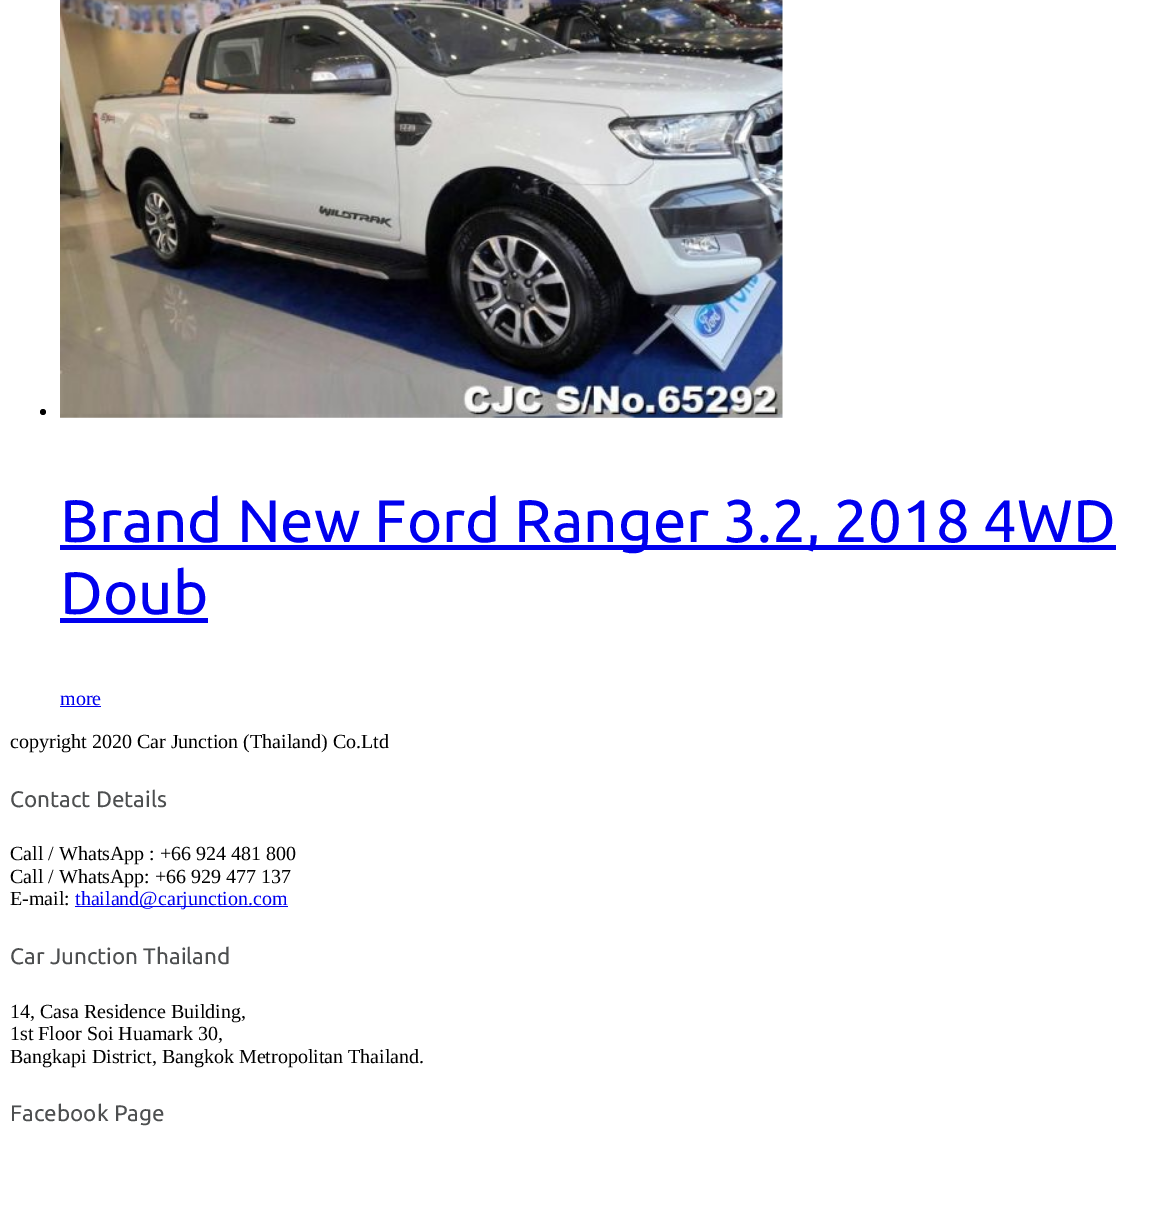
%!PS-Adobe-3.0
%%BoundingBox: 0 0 1176 1205
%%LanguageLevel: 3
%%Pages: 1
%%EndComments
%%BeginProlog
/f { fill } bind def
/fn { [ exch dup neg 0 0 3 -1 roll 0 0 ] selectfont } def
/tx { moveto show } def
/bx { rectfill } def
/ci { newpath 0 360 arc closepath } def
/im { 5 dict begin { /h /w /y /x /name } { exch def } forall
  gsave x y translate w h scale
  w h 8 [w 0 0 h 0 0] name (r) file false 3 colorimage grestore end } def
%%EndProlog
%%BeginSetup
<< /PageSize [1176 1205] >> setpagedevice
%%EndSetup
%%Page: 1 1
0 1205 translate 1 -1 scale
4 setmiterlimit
1 setgray
0 0 1176 1205 bx
0 setgray
43 412 3 ci f
(image0.raw) 60 0 723 418 im
0 0 0.933 setrgbcolor
60 545 1056 5 bx
/Ubuntu-Regular 60 fn
(Brand New Ford Ranger 3.2, 2018 4WD) 60 542 tx
(Doub) 60 614 tx
60 618 148 5 bx
/LiberationSerif-Regular 20 fn
(more) 60 705 tx
60 706 41 1 bx
0 setgray
(copyright 2020 Car Junction \(Thailand\) Co.Ltd) 10 748 tx
/Ubuntu-Regular 22.5 fn
0.302 0.31 0.314 setrgbcolor
(Contact Details) 10 807 tx
/LiberationSerif-Regular 20 fn
0 setgray
(Call / WhatsApp : +66 924 481 800) 10 860 tx
(Call / WhatsApp: +66 929 477 137) 10 883 tx
(E-mail:) 10 905 tx
0 0 0.933 setrgbcolor
75 906 213 1 bx
(thailand@carjunction.com) 75 905 tx
/Ubuntu-Regular 22.5 fn
0.302 0.31 0.314 setrgbcolor
(Car Junction Thailand) 10 964 tx
/LiberationSerif-Regular 20 fn
0 setgray
(14, Casa Residence Building,) 10 1018 tx
(1st Floor Soi Huamark 30,) 10 1040 tx
(Bangkapi District, Bangkok Metropolitan Thailand.) 10 1063 tx
/Ubuntu-Regular 22.5 fn
0.302 0.31 0.314 setrgbcolor
(Facebook Page) 10 1121 tx
showpage
%%EOF
